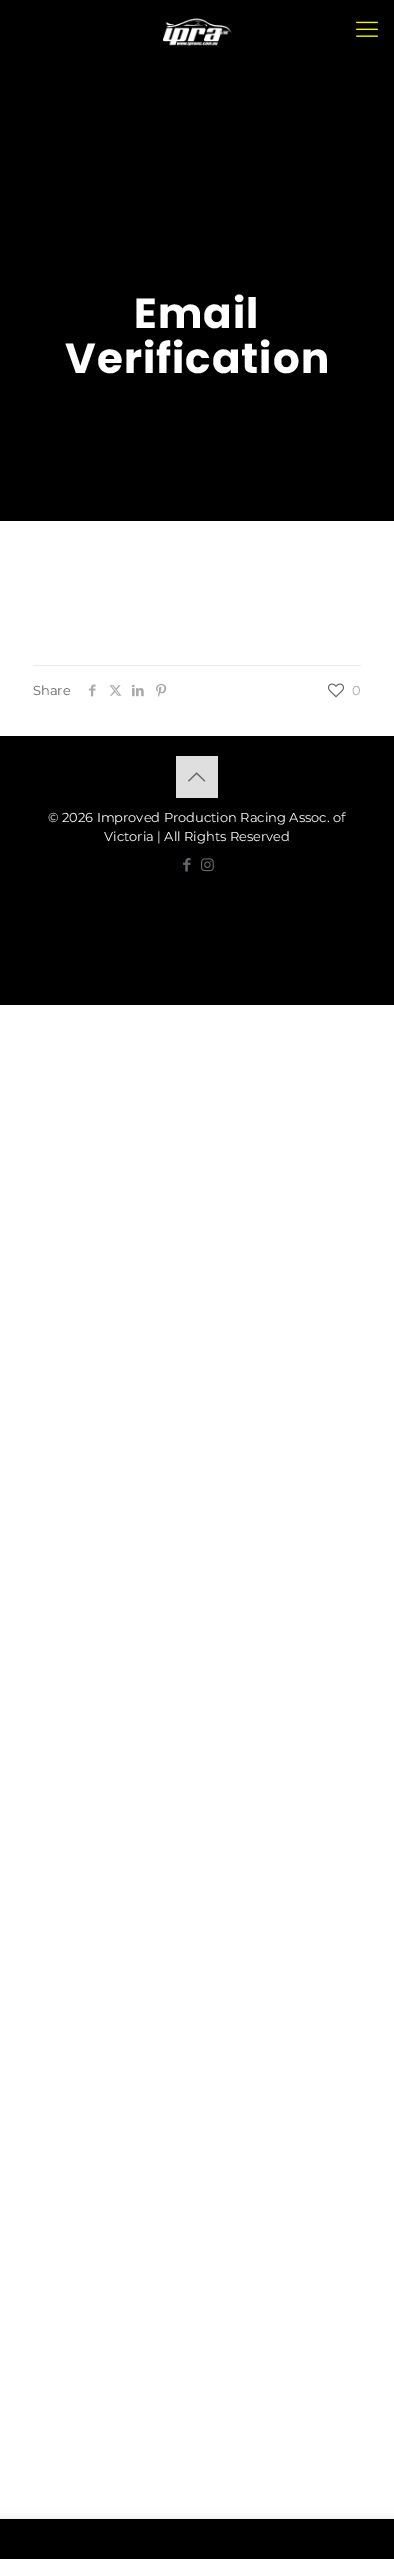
%!PS-Adobe-3.0
%%BoundingBox: 0 0 394 2559
%%LanguageLevel: 3
%%Pages: 1
%%EndComments
%%BeginProlog
/m { moveto } bind def
/fn { [ exch dup neg 0 0 3 -1 roll 0 0 ] selectfont } def
/tx { moveto show } def
/bx { rectfill } def
/al { dup .setfillconstantalpha .setstrokeconstantalpha } def
/rr { 5 dict begin { /r /h /w /y /x } { exch def } forall
  x r add y moveto x w add y 2 copy h add r arct x w add y h add x 1 index r arct
  x y h add x y r arct x y 2 copy exch w add exch r arct closepath end } def
/sh { 12 dict begin { /a /b /q /h /w /y /x } { exch def } forall gsave /was 0 def
  9 -2 -9 { dup b mul 4 div /e exch def 1 sub .425 mul 2.718 exch exp 1 add a .99 .min exch div /now exch def
    1 1 now sub 1 was sub div sub al /was now def
    w h .min e 2 mul add 0 gt { x e sub y e sub w e 2 mul add h e 2 mul add
      q e add b .6 mul add w h .min 2 div e add .min 0 .max rr fill } if } for grestore end } def
/im { 5 dict begin { /h /w /y /x /name } { exch def } forall
  gsave x y translate w h scale
  w h 8 [w 0 0 h 0 0] name (r) file false 3 colorimage grestore end } def
%%EndProlog
%%BeginSetup
<< /PageSize [394 2559] /PageUsesTransparency true >> setpagedevice
%%EndSetup
%%Page: 1 1
0 .pushpdf14devicefilter
0 2559 translate 1 -1 scale
4 setmiterlimit
1 setgray
0 0 394 2559 bx
0 setgray
0 0 394 521 bx
(image0.raw) 162 18 70 28 im
(image1.raw) 356 21 22 16 im
/Poppins-Bold 42 fn
1 setgray
134 328 m 1 0 (Email) ashow
65 373 m 1 0 (Verification) ashow
0.922 setgray
33 665 328 1 bx
/Montserrat-Regular 13 fn
0.384 setgray
(Share) 33 695 tx
(image2.raw) 89 684 7 13 im
(image3.raw) 109 685 13 11 im
(image4.raw) 132 684 12 13 im
(image5.raw) 156 683 11 14 im
(image6.raw) 328 683 16 15 im
0.659 setgray
(0) 352 695 tx
0 setgray
0 736 394 269 bx
0.875 setgray
176 756 42 42 bx
(image7.raw) 188 772 18 10 im
1 setgray
(© 2026 Improved Production Racing Assoc. of) 48 822 tx
(Victoria | All Rights Reserved) 104 841 tx
(image8.raw) 183 858 8 14 im
(image9.raw) 201 858 13 14 im
0 setgray
0 2519 394 40 0 5 0.1 sh
0 2519 394 40 bx
.poppdf14devicefilter showpage
%%EOF
